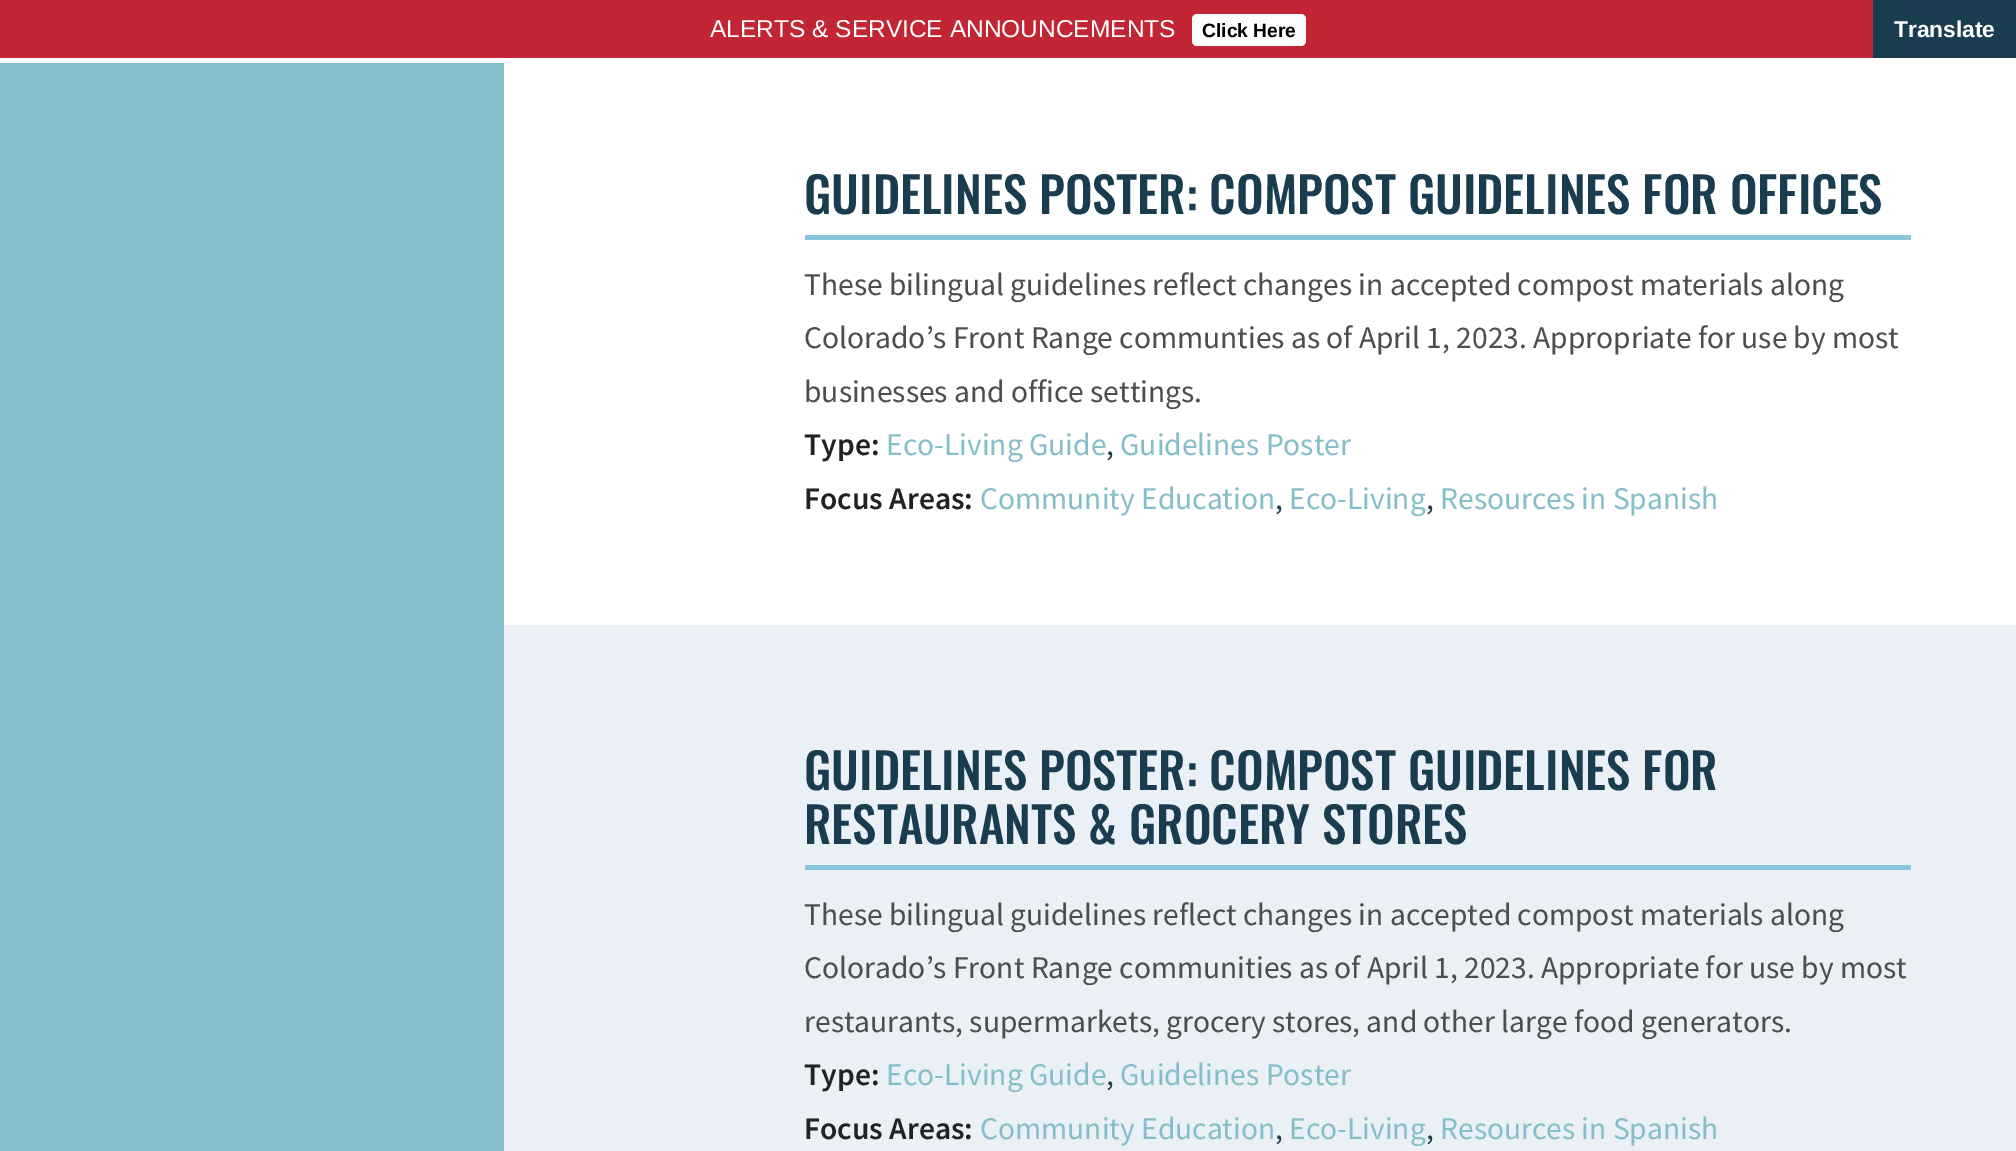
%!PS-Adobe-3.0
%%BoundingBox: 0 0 2016 1151
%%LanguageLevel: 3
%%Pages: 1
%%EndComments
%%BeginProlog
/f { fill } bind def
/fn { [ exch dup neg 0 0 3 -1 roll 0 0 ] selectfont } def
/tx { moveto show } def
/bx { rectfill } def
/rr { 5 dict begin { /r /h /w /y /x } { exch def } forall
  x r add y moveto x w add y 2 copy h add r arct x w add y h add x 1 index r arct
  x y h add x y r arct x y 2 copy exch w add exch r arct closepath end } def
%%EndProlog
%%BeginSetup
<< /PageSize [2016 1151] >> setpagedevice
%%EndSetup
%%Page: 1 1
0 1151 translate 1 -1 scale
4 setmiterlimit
1 setgray
0 0 2016 1151 bx
0.761 0.149 0.208 setrgbcolor
0 0 1873 58 bx
/LiberationSans-Regular 24.5 fn
1 setgray
(ALERTS & SERVICE ANNOUNCEMENTS) 710 37 tx
1192 14 114 32 5 rr f
/LiberationSans-Bold 19.25 fn
0 setgray
(Click Here) 1202 37 tx
0.102 0.235 0.31 setrgbcolor
1873 0 143 58 bx
/LiberationSans-Bold 22.75 fn
1 setgray
(Translate) 1894 37 tx
0.522 0.749 0.788 setrgbcolor
0 63 504 1088 bx
0.533 0.776 0.867 setrgbcolor
805 235 1106 5 bx
/Oswald-Medium 49 fn
0.098 0.235 0.31 setrgbcolor
(GUIDELINES POSTER: COMPOST GUIDELINES FOR OFFICES) 804 214 tx
/SourceSansPro-Regular 31.5 fn
0.302 0.302 0.31 setrgbcolor
(These bilingual guidelines reflect changes in accepted compost materials along) 804 295 tx
(Colorado’s Front Range communties as of April 1, 2023. Appropriate for use by most) 804 348 tx
(businesses and office settings.) 804 402 tx
/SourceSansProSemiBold-SemiBold 31.5 fn
0.133 setgray
(Type:) 804 455 tx
/SourceSansPro-Regular 31.5 fn
0.522 0.745 0.784 setrgbcolor
(Eco-Living Guide) 886 455 tx
0.098 0.235 0.31 setrgbcolor
(,) 1106 455 tx
0.522 0.745 0.784 setrgbcolor
(Guidelines Poster) 1120 455 tx
/SourceSansProSemiBold-SemiBold 31.5 fn
0.133 setgray
(Focus Areas:) 804 509 tx
/SourceSansPro-Regular 31.5 fn
0.522 0.745 0.784 setrgbcolor
(Community Education) 980 509 tx
0.098 0.235 0.31 setrgbcolor
(,) 1275 509 tx
0.522 0.745 0.784 setrgbcolor
(Eco-Living) 1289 509 tx
0.098 0.235 0.31 setrgbcolor
(,) 1426 509 tx
0.522 0.745 0.784 setrgbcolor
(Resources in Spanish) 1440 509 tx
0.918 0.941 0.961 setrgbcolor
504 625 1512 526 bx
0.533 0.776 0.867 setrgbcolor
805 865 1106 5 bx
/Oswald-Medium 49 fn
0.098 0.235 0.31 setrgbcolor
(GUIDELINES POSTER: COMPOST GUIDELINES FOR) 804 790 tx
(RESTAURANTS & GROCERY STORES) 804 844 tx
/SourceSansPro-Regular 31.5 fn
0.302 0.302 0.31 setrgbcolor
(These bilingual guidelines reflect changes in accepted compost materials along) 804 925 tx
(Colorado’s Front Range communities as of April 1, 2023. Appropriate for use by most) 804 978 tx
(restaurants, supermarkets, grocery stores, and other large food generators.) 804 1032 tx
/SourceSansProSemiBold-SemiBold 31.5 fn
0.133 setgray
(Type:) 804 1085 tx
/SourceSansPro-Regular 31.5 fn
0.522 0.745 0.784 setrgbcolor
(Eco-Living Guide) 886 1085 tx
0.098 0.235 0.31 setrgbcolor
(,) 1106 1085 tx
0.522 0.745 0.784 setrgbcolor
(Guidelines Poster) 1120 1085 tx
/SourceSansProSemiBold-SemiBold 31.5 fn
0.133 setgray
(Focus Areas:) 804 1139 tx
/SourceSansPro-Regular 31.5 fn
0.522 0.745 0.784 setrgbcolor
(Community Education) 980 1139 tx
0.098 0.235 0.31 setrgbcolor
(,) 1275 1139 tx
0.522 0.745 0.784 setrgbcolor
(Eco-Living) 1289 1139 tx
0.098 0.235 0.31 setrgbcolor
(,) 1426 1139 tx
0.522 0.745 0.784 setrgbcolor
(Resources in Spanish) 1440 1139 tx
showpage
%%EOF
